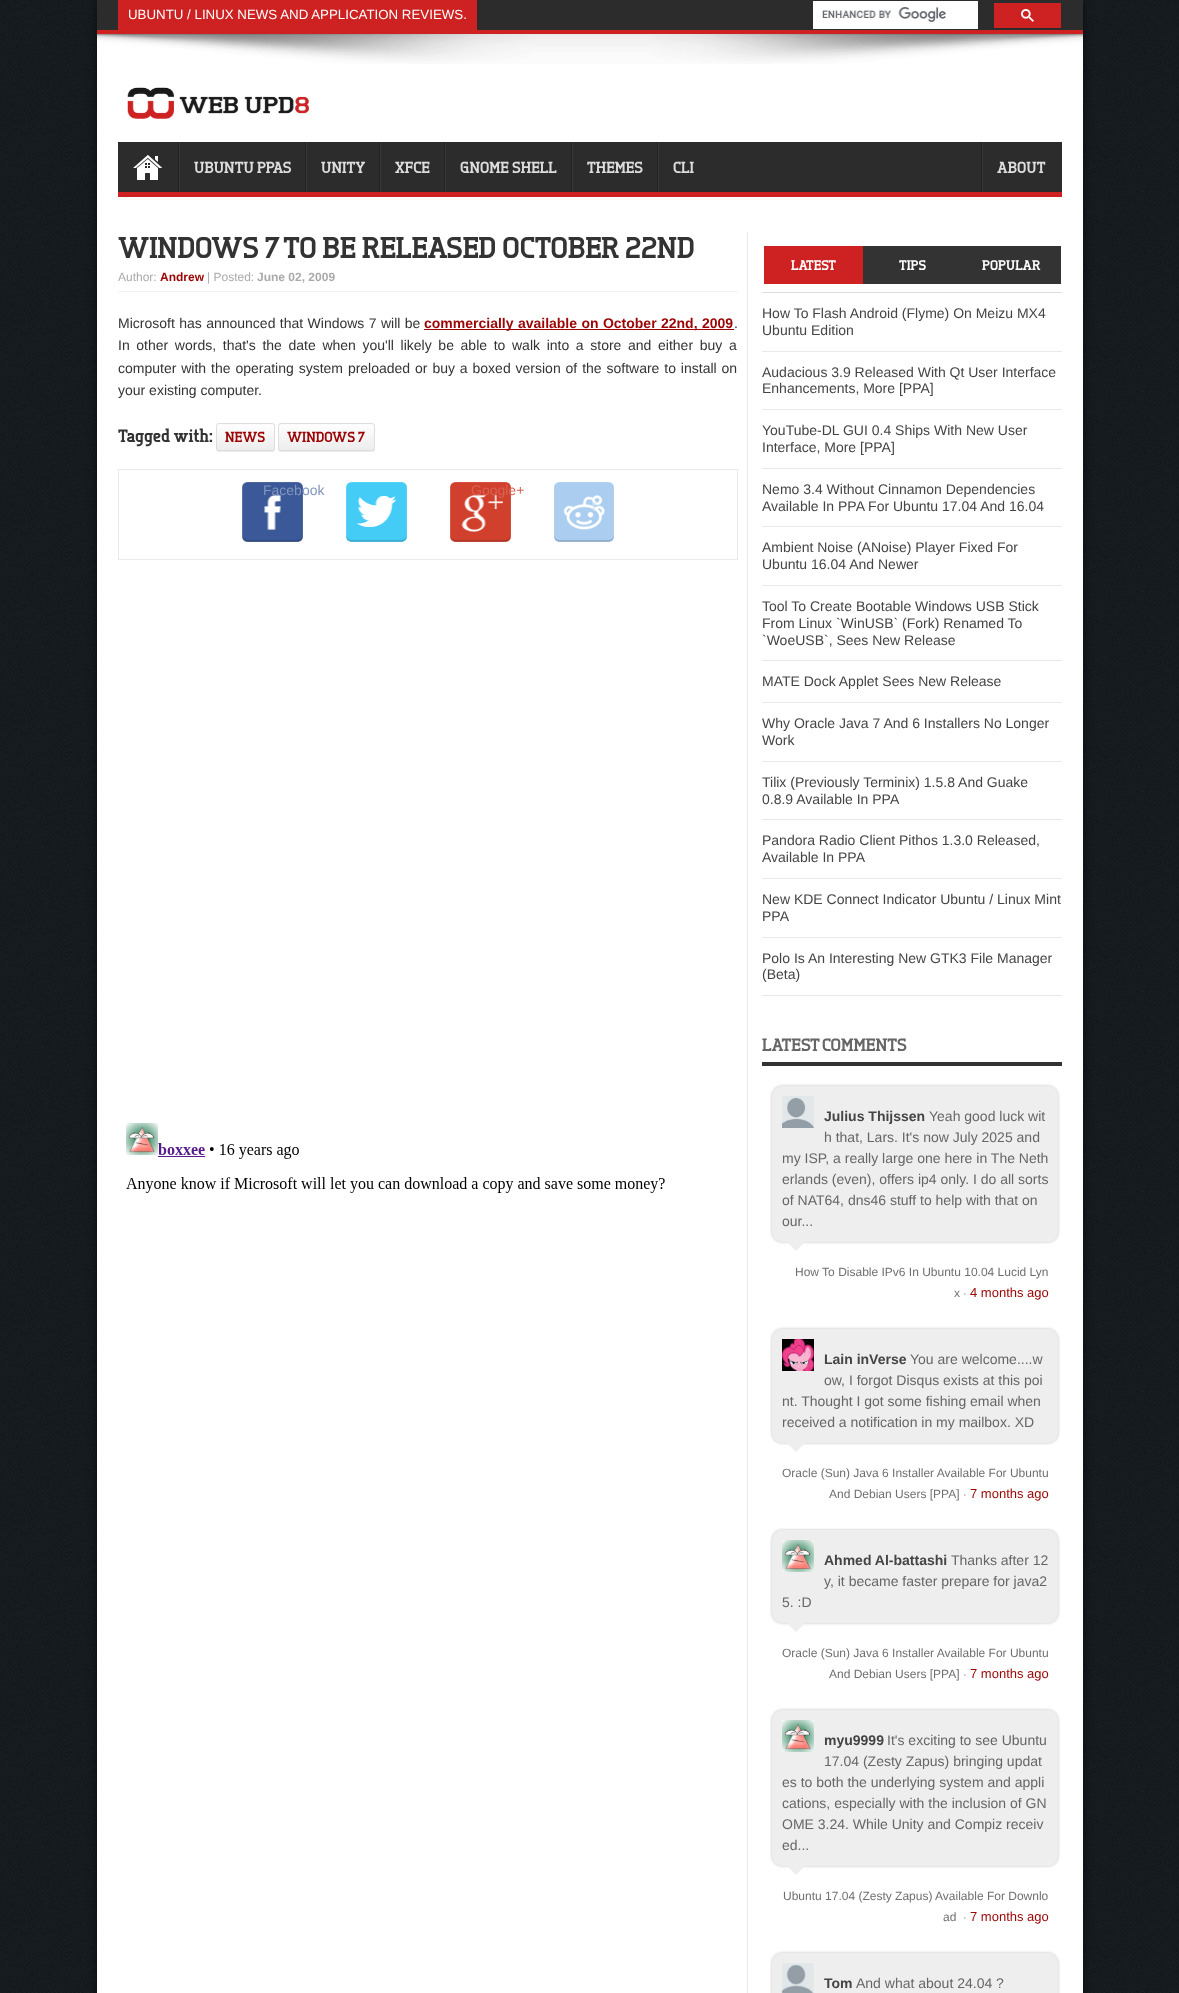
<?xml version="1.0" encoding="UTF-8"?>
<svg xmlns="http://www.w3.org/2000/svg" xmlns:xlink="http://www.w3.org/1999/xlink" width="1179" height="1993">
  <defs>
    <clipPath id="clip1"><rect x="216" y="423" width="59" height="28" rx="3" /></clipPath>
    <linearGradient id="g1" gradientUnits="userSpaceOnUse" x1="246" y1="424" x2="246" y2="450"><stop offset="0" stop-color="#ffffff" /><stop offset="0.47" stop-color="#f6f6f6" /><stop offset="1" stop-color="#ededed" /></linearGradient>
    <clipPath id="clip2"><rect x="278" y="423" width="97" height="28" rx="3" /></clipPath>
    <linearGradient id="g2" gradientUnits="userSpaceOnUse" x1="327" y1="424" x2="327" y2="450"><stop offset="0" stop-color="#ffffff" /><stop offset="0.47" stop-color="#f6f6f6" /><stop offset="1" stop-color="#ededed" /></linearGradient>
  </defs>
  <rect width="100%" height="100%" fill="#ffffff" />
  <image x="0" y="0" width="1179" height="1993" xlink:href="image1.png" />
  <rect x="97" width="986" height="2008" fill="#000000" fill-opacity="0.5" filter="blur(5px)" />
  <rect x="97" y="34" width="986" height="1959" fill="#ffffff" />
  <rect x="97" width="986" height="30" fill="#2c2c2c" />
  <rect x="97" y="30" width="986" height="4" fill="#cd2122" />
  <rect x="118" width="359" height="30" fill="#cd2122" />
  <rect x="813" y="1" width="165" height="28" fill="#ffffff" />
  <image x="822" y="7" width="124" height="15" xlink:href="image2.png" />
  <rect x="994" y="3" width="67" height="25" fill="#cd2122" />
  <image x="1021" y="9" width="13" height="13" xlink:href="image3.png" />
  <image x="97" y="34" width="986" height="30" xlink:href="image4.png" />
  <image x="127" y="87" width="183" height="32" xlink:href="image5.png" />
  <rect x="118" y="142" width="944" height="50" fill="#2c2c2c" />
  <rect x="118" y="192" width="944" height="5" fill="#cd2122" />
  <image x="133" y="155" width="29" height="25" xlink:href="image6.png" />
  <rect x="178" y="142" width="1" height="50" fill="#222222" />
  <rect x="179" y="142" width="1" height="50" fill="#383838" />
  <rect x="305" y="142" width="1" height="50" fill="#222222" />
  <rect x="306" y="142" width="1" height="50" fill="#383838" />
  <rect x="379" y="142" width="1" height="50" fill="#222222" />
  <rect x="380" y="142" width="1" height="50" fill="#383838" />
  <rect x="444" y="142" width="1" height="50" fill="#222222" />
  <rect x="445" y="142" width="1" height="50" fill="#383838" />
  <rect x="571" y="142" width="1" height="50" fill="#222222" />
  <rect x="572" y="142" width="1" height="50" fill="#383838" />
  <rect x="657" y="142" width="1" height="50" fill="#222222" />
  <rect x="658" y="142" width="1" height="50" fill="#383838" />
  <rect x="981" y="142" width="1" height="50" fill="#222222" />
  <rect x="982" y="142" width="1" height="50" fill="#383838" />
  <rect x="118" y="291" width="620" height="1" fill="#f2f2f2" />
  <rect x="424" y="329" width="310" height="1" fill="#9b0505" />
  <rect x="216" y="424" width="59" height="28" rx="3" fill="#eaeaea" filter="blur(0.5px)" />
  <g clip-path="url(#clip1)">
    <rect x="216" y="424" width="59" height="26" fill="url(#g1)" />
  </g>
  <path d="M 219 425 h 53 c 1 0 2 1 2 2 c 0 -5 -7 -3 -11 -3 h -35 c -4 0 -11 -2 -11 3 c 0 -1 1 -2 2 -2 z" fill="#fbfbfb" />
  <rect x="216.5" y="423.5" width="58" height="27" rx="2.5" fill="none" stroke="#dedede" />
  <rect x="278" y="424" width="97" height="28" rx="3" fill="#eaeaea" filter="blur(0.5px)" />
  <g clip-path="url(#clip2)">
    <rect x="278" y="424" width="97" height="26" fill="url(#g2)" />
  </g>
  <path d="M 281 425 h 91 c 1 0 2 1 2 2 c 0 -1 0 -3 -2 -3 h -76 c -2 0 -17 -4 -17 3 c 0 -1 1 -2 2 -2 z" fill="#fbfbfb" />
  <rect x="278.5" y="423.5" width="96" height="27" rx="2.5" fill="none" stroke="#dedede" />
  <rect x="118.5" y="469.5" width="619" height="90" fill="none" stroke="#eaeaea" />
  <image x="242" y="482" width="61" height="60" xlink:href="image7.png" />
  <image x="346" y="482" width="61" height="60" xlink:href="image8.png" />
  <image x="450" y="482" width="61" height="60" xlink:href="image9.png" />
  <image x="554" y="482" width="60" height="60" xlink:href="image10.png" />
  <image x="126" y="1123" width="539" height="70" xlink:href="image11.png" />
  <rect x="747" y="232" width="1" height="1761" fill="#eaeaea" />
  <rect x="764" y="246" width="99" height="38" fill="#cd2122" />
  <rect x="863" y="246" width="198" height="38" fill="#333333" />
  <rect x="762" y="292" width="300" height="1" fill="#dddddd" />
  <rect x="762" y="351" width="300" height="1" fill="#e9e9e9" />
  <rect x="762" y="409" width="300" height="1" fill="#e9e9e9" />
  <rect x="762" y="468" width="300" height="1" fill="#e9e9e9" />
  <rect x="762" y="526" width="300" height="1" fill="#e9e9e9" />
  <rect x="762" y="585" width="300" height="1" fill="#e9e9e9" />
  <rect x="762" y="660" width="300" height="1" fill="#e9e9e9" />
  <rect x="762" y="702" width="300" height="1" fill="#e9e9e9" />
  <rect x="762" y="761" width="300" height="1" fill="#e9e9e9" />
  <rect x="762" y="819" width="300" height="1" fill="#e9e9e9" />
  <rect x="762" y="878" width="300" height="1" fill="#e9e9e9" />
  <rect x="762" y="937" width="300" height="1" fill="#e9e9e9" />
  <rect x="762" y="995" width="300" height="1" fill="#e9e9e9" />
  <rect x="762" y="1062" width="300" height="4" fill="#333333" />
  <rect x="772" y="1086" width="286" height="156" rx="10" fill="#000000" fill-opacity="0.25" filter="blur(1.5px)" />
  <rect x="772" y="1086" width="286" height="156" rx="10" fill="#eeeeee" />
  <image x="782" y="1096" width="32" height="32" xlink:href="image12.png" />
  <path d="M 786 1241 h 20 l -10 10 z" fill="#eeeeee" />
  <rect x="772" y="1329" width="286" height="114" rx="10" fill="#000000" fill-opacity="0.25" filter="blur(1.5px)" />
  <rect x="772" y="1329" width="286" height="114" rx="10" fill="#eeeeee" />
  <image x="782" y="1339" width="32" height="32" xlink:href="image13.png" />
  <path d="M 786 1442 h 20 l -10 10 z" fill="#eeeeee" />
  <rect x="772" y="1530" width="286" height="93" rx="10" fill="#000000" fill-opacity="0.25" filter="blur(1.5px)" />
  <rect x="772" y="1530" width="286" height="93" rx="10" fill="#eeeeee" />
  <image x="782" y="1540" width="32" height="32" xlink:href="image14.png" />
  <path d="M 786 1622 h 20 l -10 10 z" fill="#eeeeee" />
  <rect x="772" y="1710" width="286" height="156" rx="10" fill="#000000" fill-opacity="0.25" filter="blur(1.5px)" />
  <rect x="772" y="1710" width="286" height="156" rx="10" fill="#eeeeee" />
  <image x="782" y="1720" width="32" height="32" xlink:href="image14.png" />
  <path d="M 786 1865 h 20 l -10 10 z" fill="#eeeeee" />
  <rect x="772" y="1953" width="286" height="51" rx="10" fill="#000000" fill-opacity="0.25" filter="blur(1.5px)" />
  <rect x="772" y="1953" width="286" height="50" rx="10" fill="#eeeeee" />
  <image x="781" y="1963" width="33" height="30" xlink:href="image15.png" />
  <text x="128" y="19" style="font-family: Liberation Sans; font-size: 13.3px; fill: #ffffff">UBUNTU / LINUX NEWS AND APPLICATION REVIEWS.</text>
  <text x="194" y="173" style="font-family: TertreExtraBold; font-size: 16px; font-weight: 800; fill: #dddddd">UBUNTU PPAS</text>
  <text x="321" y="173" style="font-family: TertreExtraBold; font-size: 16px; font-weight: 800; fill: #dddddd">UNITY</text>
  <text x="395" y="173" style="font-family: TertreExtraBold; font-size: 16px; font-weight: 800; fill: #dddddd">XFCE</text>
  <text x="460" y="173" style="font-family: TertreExtraBold; font-size: 16px; font-weight: 800; fill: #dddddd">GNOME SHELL</text>
  <text x="587" y="173" style="font-family: TertreExtraBold; font-size: 16px; font-weight: 800; fill: #dddddd">THEMES</text>
  <text x="673" y="173" style="font-family: TertreExtraBold; font-size: 16px; font-weight: 800; fill: #dddddd">CLI</text>
  <text x="997" y="173" style="font-family: TertreExtraBold; font-size: 16px; font-weight: 800; fill: #dddddd">ABOUT</text>
  <text x="118" y="258" style="font-family: TertreExtraBold; font-size: 30px; font-weight: 800; fill: #333333">WINDOWS 7 TO BE RELEASED OCTOBER 22ND</text>
  <text x="118" y="281" style="font-family: Liberation Sans; font-size: 12px; fill: #aaaaaa">Author:</text>
  <text x="160" y="281" style="font-family: Liberation Sans; font-size: 12px; font-weight: bold; fill: #9b0505">Andrew</text>
  <text x="207" y="281" style="font-family: Liberation Sans; font-size: 12px; fill: #aaaaaa">| Posted:</text>
  <text x="257" y="281" style="font-family: Liberation Sans; font-size: 12px; font-weight: bold; fill: #aaaaaa">June 02, 2009</text>
  <text x="118" y="328" word-spacing="0.5" style="font-family: Liberation Sans; font-size: 14px; fill: #333333">Microsoft has announced that Windows 7 will be</text>
  <text x="424" y="328" word-spacing="0.5" style="font-family: Liberation Sans; font-size: 14px; font-weight: bold; fill: #9b0505">commercially available on October 22nd, 2009</text>
  <text x="734" y="328" style="font-family: Liberation Sans; font-size: 14px; fill: #333333">.</text>
  <text x="118" y="350" word-spacing="2.75" style="font-family: Liberation Sans; font-size: 14px; fill: #333333">In other words, that's the date when you'll likely be able to walk into a store and either buy a</text>
  <text x="118" y="373" word-spacing="1" style="font-family: Liberation Sans; font-size: 14px; fill: #333333">computer with the operating system preloaded or buy a boxed version of the software to install on</text>
  <text x="118" y="395" style="font-family: Liberation Sans; font-size: 14px; fill: #333333">your existing computer.</text>
  <text x="118" y="442" style="font-family: TertreExtraBold; font-size: 18px; font-weight: 800; fill: #333333">Tagged with:</text>
  <text x="225" y="442" style="font-family: TertreExtraBold; font-size: 14.5px; font-weight: 800; fill: #9b0505">NEWS</text>
  <text x="287" y="442" style="font-family: TertreExtraBold; font-size: 14.5px; font-weight: 800; fill: #9b0505">WINDOWS 7</text>
  <text x="263" y="495" style="font-family: Liberation Sans; font-size: 14px; fill: #8396be">Facebook</text>
  <text x="471" y="495" style="font-family: Liberation Sans; font-size: 14px; fill: #d96253">Google+</text>
  <text x="592" y="511" style="font-family: Liberation Sans; font-size: 14px; fill: #cee3f6">t</text>
  <text x="791" y="270" style="font-family: TertreExtraBold; font-size: 14px; font-weight: 800; fill: #ffffff">LATEST</text>
  <text x="899" y="270" style="font-family: TertreExtraBold; font-size: 14px; font-weight: 800; fill: #ffffff">TIPS</text>
  <text x="982" y="270" style="font-family: TertreExtraBold; font-size: 14px; font-weight: 800; fill: #ffffff">POPULAR</text>
  <text x="762" y="318" style="font-family: Liberation Sans; font-size: 14px; fill: #444444">How To Flash Android (Flyme) On Meizu MX4</text>
  <text x="762" y="335" style="font-family: Liberation Sans; font-size: 14px; fill: #444444">Ubuntu Edition</text>
  <text x="762" y="377" style="font-family: Liberation Sans; font-size: 14px; fill: #444444">Audacious 3.9 Released With Qt User Interface</text>
  <text x="762" y="393" style="font-family: Liberation Sans; font-size: 14px; fill: #444444">Enhancements, More [PPA]</text>
  <text x="762" y="435" style="font-family: Liberation Sans; font-size: 14px; fill: #444444">YouTube-DL GUI 0.4 Ships With New User</text>
  <text x="762" y="452" style="font-family: Liberation Sans; font-size: 14px; fill: #444444">Interface, More [PPA]</text>
  <text x="762" y="494" style="font-family: Liberation Sans; font-size: 14px; fill: #444444">Nemo 3.4 Without Cinnamon Dependencies</text>
  <text x="762" y="511" style="font-family: Liberation Sans; font-size: 14px; fill: #444444">Available In PPA For Ubuntu 17.04 And 16.04</text>
  <text x="762" y="552" style="font-family: Liberation Sans; font-size: 14px; fill: #444444">Ambient Noise (ANoise) Player Fixed For</text>
  <text x="762" y="569" style="font-family: Liberation Sans; font-size: 14px; fill: #444444">Ubuntu 16.04 And Newer</text>
  <text x="762" y="611" style="font-family: Liberation Sans; font-size: 14px; fill: #444444">Tool To Create Bootable Windows USB Stick</text>
  <text x="762" y="628" style="font-family: Liberation Sans; font-size: 14px; fill: #444444">From Linux `WinUSB` (Fork) Renamed To</text>
  <text x="762" y="645" style="font-family: Liberation Sans; font-size: 14px; fill: #444444">`WoeUSB`, Sees New Release</text>
  <text x="762" y="686" style="font-family: Liberation Sans; font-size: 14px; fill: #444444">MATE Dock Applet Sees New Release</text>
  <text x="762" y="728" style="font-family: Liberation Sans; font-size: 14px; fill: #444444">Why Oracle Java 7 And 6 Installers No Longer</text>
  <text x="762" y="745" style="font-family: Liberation Sans; font-size: 14px; fill: #444444">Work</text>
  <text x="762" y="787" style="font-family: Liberation Sans; font-size: 14px; fill: #444444">Tilix (Previously Terminix) 1.5.8 And Guake</text>
  <text x="762" y="804" style="font-family: Liberation Sans; font-size: 14px; fill: #444444">0.8.9 Available In PPA</text>
  <text x="762" y="845" style="font-family: Liberation Sans; font-size: 14px; fill: #444444">Pandora Radio Client Pithos 1.3.0 Released,</text>
  <text x="762" y="862" style="font-family: Liberation Sans; font-size: 14px; fill: #444444">Available In PPA</text>
  <text x="762" y="904" style="font-family: Liberation Sans; font-size: 14px; fill: #444444">New KDE Connect Indicator Ubuntu / Linux Mint</text>
  <text x="762" y="921" style="font-family: Liberation Sans; font-size: 14px; fill: #444444">PPA</text>
  <text x="762" y="963" style="font-family: Liberation Sans; font-size: 14px; fill: #444444">Polo Is An Interesting New GTK3 File Manager</text>
  <text x="762" y="979" style="font-family: Liberation Sans; font-size: 14px; fill: #444444">(Beta)</text>
  <text x="762" y="1051" style="font-family: TertreExtraBold; font-size: 18px; font-weight: 800; fill: #666666">LATEST COMMENTS</text>
  <text x="824" y="1121" style="font-family: Liberation Sans; font-size: 14px; font-weight: bold; fill: #444444">Julius Thijssen</text>
  <text x="929" y="1121" style="font-family: Liberation Sans; font-size: 14px; fill: #666666">Yeah good luck wit</text>
  <text x="824" y="1142" style="font-family: Liberation Sans; font-size: 14px; fill: #666666">h that, Lars. It's now July 2025 and</text>
  <text x="782" y="1163" style="font-family: Liberation Sans; font-size: 14px; fill: #666666">my ISP, a really large one here in The Neth</text>
  <text x="782" y="1184" style="font-family: Liberation Sans; font-size: 14px; fill: #666666">erlands (even), offers ip4 only. I do all sorts</text>
  <text x="782" y="1205" style="font-family: Liberation Sans; font-size: 14px; fill: #666666">of NAT64, dns46 stuff to help with that on</text>
  <text x="782" y="1226" style="font-family: Liberation Sans; font-size: 14px; fill: #666666">our...</text>
  <text x="795" y="1276" style="font-family: Liberation Sans; font-size: 12px; fill: #6f6f6f">How To Disable IPv6 In Ubuntu 10.04 Lucid Lyn</text>
  <text x="954" y="1297" style="font-family: Liberation Sans; font-size: 12px; fill: #6f6f6f">x</text>
  <text x="963" y="1297" style="font-family: Liberation Sans; font-size: 11px; fill: #666666">·</text>
  <text x="970" y="1297" style="font-family: Liberation Sans; font-size: 13px; fill: #9b0505">4 months ago</text>
  <text x="824" y="1364" style="font-family: Liberation Sans; font-size: 14px; font-weight: bold; fill: #444444">Lain inVerse</text>
  <text x="910" y="1364" style="font-family: Liberation Sans; font-size: 14px; fill: #666666">You are welcome....w</text>
  <text x="824" y="1385" style="font-family: Liberation Sans; font-size: 14px; fill: #666666">ow, I forgot Disqus exists at this poi</text>
  <text x="782" y="1406" style="font-family: Liberation Sans; font-size: 14px; fill: #666666">nt. Thought I got some fishing email when</text>
  <text x="782" y="1427" style="font-family: Liberation Sans; font-size: 14px; fill: #666666">received a notification in my mailbox. XD</text>
  <text x="782" y="1477" style="font-family: Liberation Sans; font-size: 12px; fill: #6f6f6f">Oracle (Sun) Java 6 Installer Available For Ubuntu</text>
  <text x="829" y="1498" style="font-family: Liberation Sans; font-size: 12px; fill: #6f6f6f">And Debian Users [PPA]</text>
  <text x="963" y="1498" style="font-family: Liberation Sans; font-size: 11px; fill: #666666">·</text>
  <text x="970" y="1498" style="font-family: Liberation Sans; font-size: 13px; fill: #9b0505">7 months ago</text>
  <text x="824" y="1565" style="font-family: Liberation Sans; font-size: 14px; font-weight: bold; fill: #444444">Ahmed Al-battashi</text>
  <text x="951" y="1565" style="font-family: Liberation Sans; font-size: 14px; fill: #666666">Thanks after 12</text>
  <text x="824" y="1586" style="font-family: Liberation Sans; font-size: 14px; fill: #666666">y, it became faster prepare for java2</text>
  <text x="782" y="1607" style="font-family: Liberation Sans; font-size: 14px; fill: #666666">5. :D</text>
  <text x="782" y="1657" style="font-family: Liberation Sans; font-size: 12px; fill: #6f6f6f">Oracle (Sun) Java 6 Installer Available For Ubuntu</text>
  <text x="829" y="1678" style="font-family: Liberation Sans; font-size: 12px; fill: #6f6f6f">And Debian Users [PPA]</text>
  <text x="963" y="1678" style="font-family: Liberation Sans; font-size: 11px; fill: #666666">·</text>
  <text x="970" y="1678" style="font-family: Liberation Sans; font-size: 13px; fill: #9b0505">7 months ago</text>
  <text x="824" y="1745" style="font-family: Liberation Sans; font-size: 14px; font-weight: bold; fill: #444444">myu9999</text>
  <text x="887" y="1745" style="font-family: Liberation Sans; font-size: 14px; fill: #666666">It's exciting to see Ubuntu</text>
  <text x="824" y="1766" style="font-family: Liberation Sans; font-size: 14px; fill: #666666">17.04 (Zesty Zapus) bringing updat</text>
  <text x="782" y="1787" style="font-family: Liberation Sans; font-size: 14px; fill: #666666">es to both the underlying system and appli</text>
  <text x="782" y="1808" style="font-family: Liberation Sans; font-size: 14px; fill: #666666">cations, especially with the inclusion of GN</text>
  <text x="782" y="1829" style="font-family: Liberation Sans; font-size: 14px; fill: #666666">OME 3.24. While Unity and Compiz receiv</text>
  <text x="782" y="1850" style="font-family: Liberation Sans; font-size: 14px; fill: #666666">ed...</text>
  <text x="783" y="1900" style="font-family: Liberation Sans; font-size: 12px; fill: #6f6f6f">Ubuntu 17.04 (Zesty Zapus) Available For Downlo</text>
  <text x="943" y="1921" style="font-family: Liberation Sans; font-size: 12px; fill: #6f6f6f">ad</text>
  <text x="963" y="1921" style="font-family: Liberation Sans; font-size: 11px; fill: #666666">·</text>
  <text x="970" y="1921" style="font-family: Liberation Sans; font-size: 13px; fill: #9b0505">7 months ago</text>
  <text x="824" y="1988" style="font-family: Liberation Sans; font-size: 14px; font-weight: bold; fill: #444444">Tom</text>
  <text x="856" y="1988" style="font-family: Liberation Sans; font-size: 14px; fill: #666666">And what about 24.04 ?</text>
</svg>
